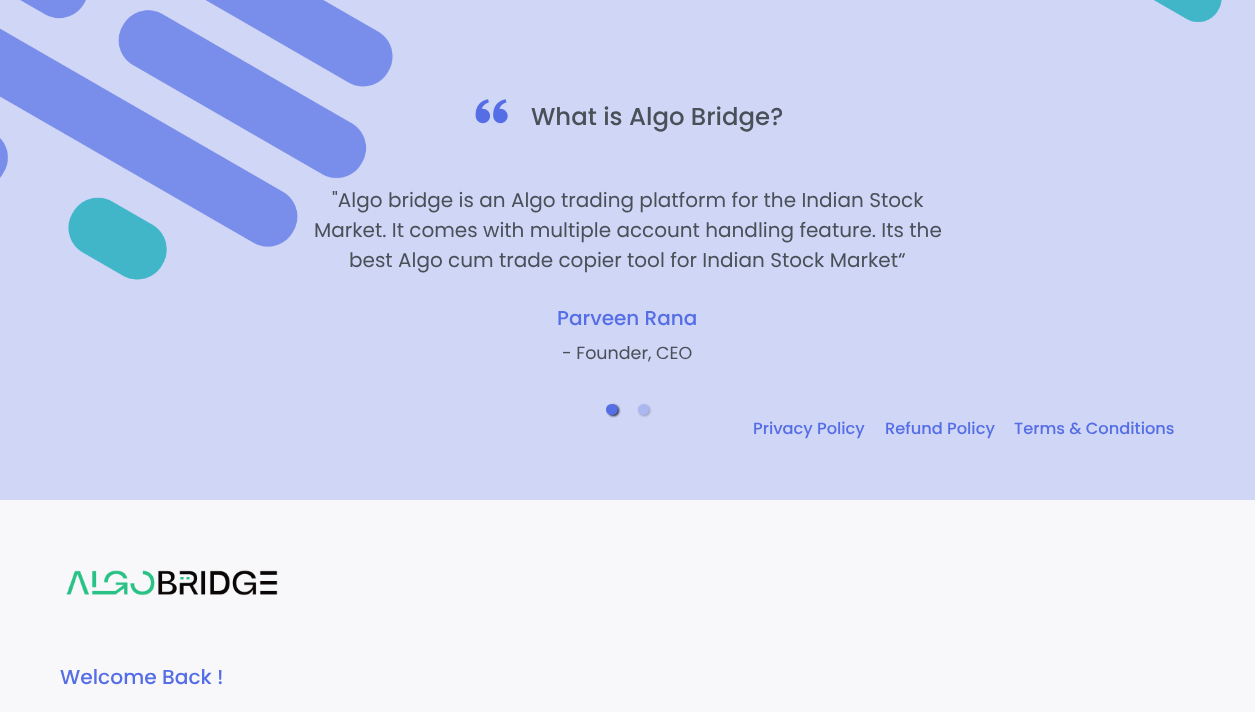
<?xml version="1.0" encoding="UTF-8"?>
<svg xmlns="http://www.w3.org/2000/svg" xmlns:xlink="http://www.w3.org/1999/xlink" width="1255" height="712">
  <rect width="100%" height="100%" fill="#f8f8fb" />
  <rect width="1255" height="500" fill="#d0d6f6" />
  <image x="0" y="0" width="1222" height="280" xlink:href="image1.png" />
  <image x="475" y="99" width="33" height="25" xlink:href="image2.png" />
  <rect x="608" y="405" width="11" height="11" rx="5.5" fill="#000000" fill-opacity="0.9" filter="blur(1px)" />
  <rect x="606" y="404" width="12" height="11" rx="5.5" fill="#556ee6" />
  <rect x="639" y="405" width="11" height="11" rx="5.5" fill="#9296ac" fill-opacity="0.9" filter="blur(1px)" />
  <circle cx="643.5" cy="409.5" r="5.5" fill="#abb7f1" />
  <image x="66" y="570" width="212" height="26" xlink:href="image3.png" />
  <text x="531" y="125" style="font-family: Poppins; font-size: 24.4px; font-weight: 500; fill: #495057">What is Algo Bridge?</text>
  <text x="332" y="207" style="font-family: Poppins; font-size: 20px; fill: #495057">"Algo bridge is an Algo trading platform for the Indian Stock</text>
  <text x="314" y="237" style="font-family: Poppins; font-size: 20px; fill: #495057">Market. It comes with multiple account handling feature. Its the</text>
  <text x="349" y="267" style="font-family: Poppins; font-size: 20px; fill: #495057">best Algo cum trade copier tool for Indian Stock Market“</text>
  <text x="557" y="325" style="font-family: Poppins; font-size: 20px; font-weight: 500; fill: #556ee6">Parveen Rana</text>
  <text x="562" y="359" style="font-family: Poppins; font-size: 17.5px; fill: #495057">- Founder, CEO</text>
  <text x="753" y="434" style="font-family: Poppins; font-size: 16.25px; font-weight: 500; fill: #556ee6">Privacy Policy</text>
  <text x="885" y="434" style="font-family: Poppins; font-size: 16.25px; font-weight: 500; fill: #556ee6">Refund Policy</text>
  <text x="1014" y="434" style="font-family: Poppins; font-size: 16.25px; font-weight: 500; fill: #556ee6">Terms &amp; Conditions</text>
  <text x="60" y="684" style="font-family: Poppins; font-size: 20.25px; font-weight: 500; fill: #556ee6">Welcome Back !</text>
</svg>
